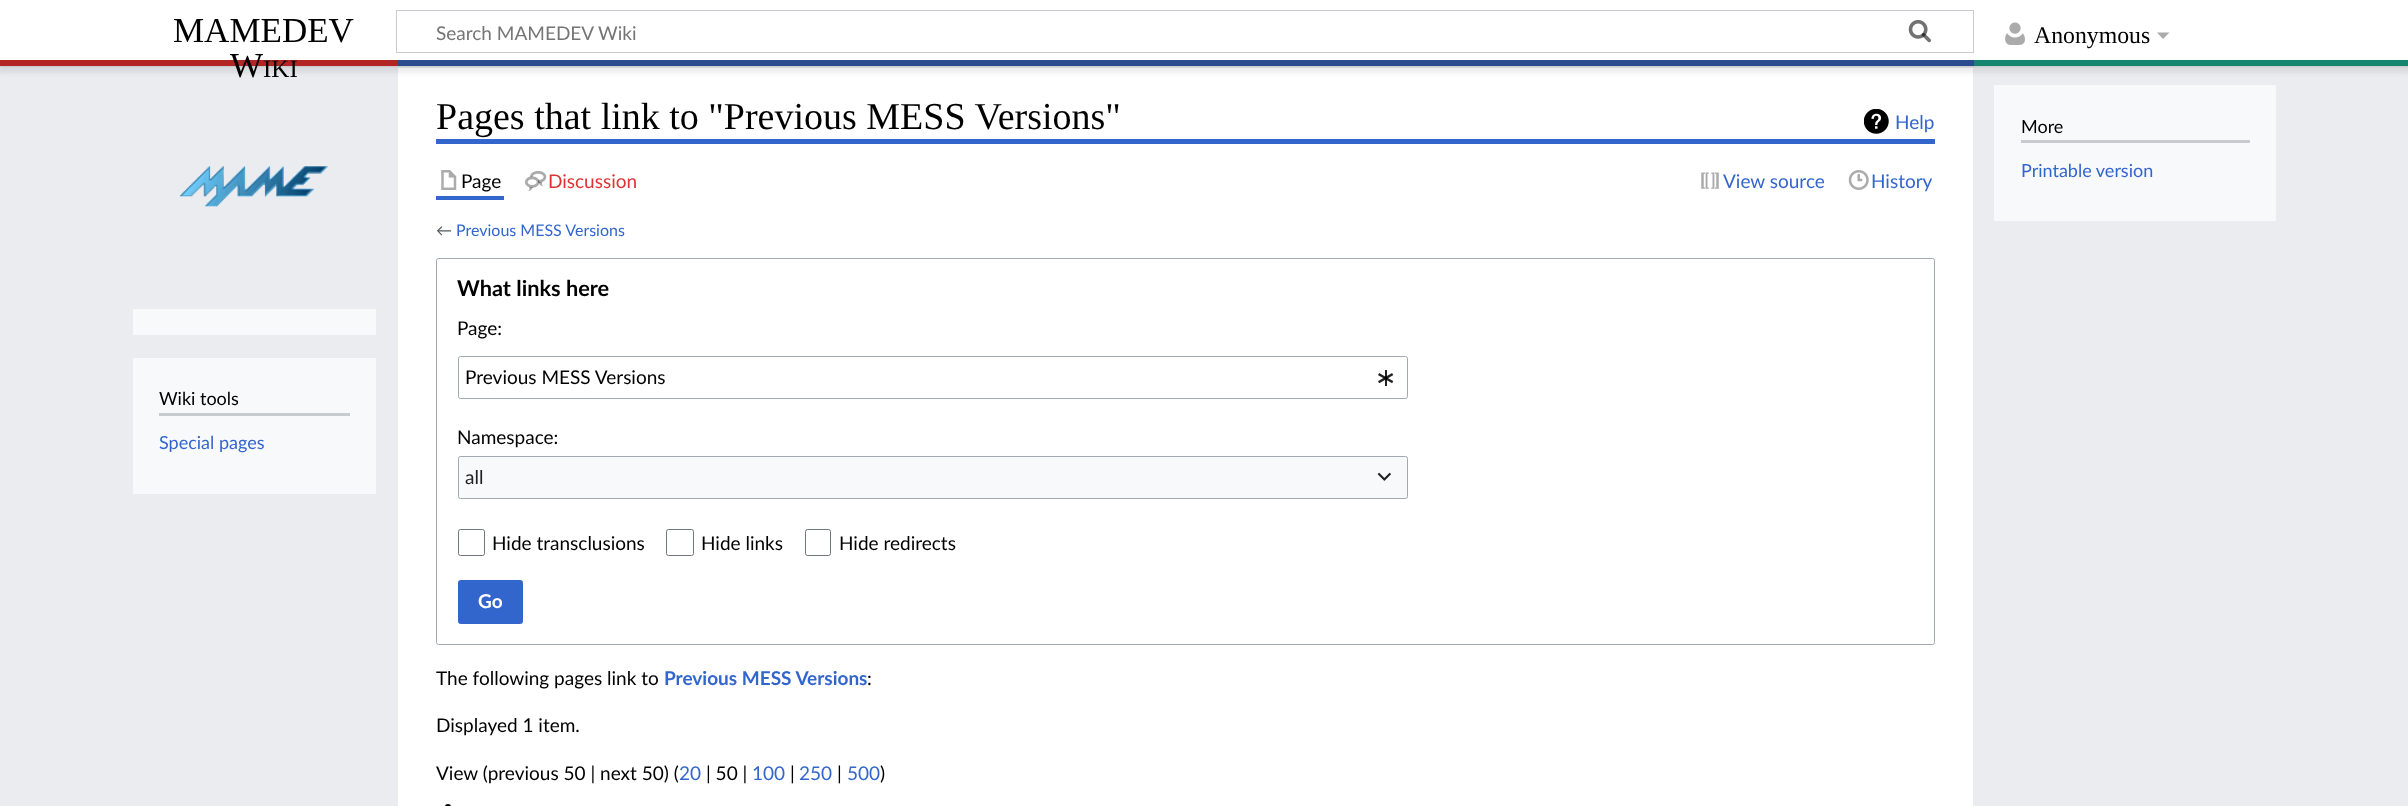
<?xml version="1.0" encoding="UTF-8"?>
<svg xmlns="http://www.w3.org/2000/svg" xmlns:xlink="http://www.w3.org/1999/xlink" width="2408" height="806">
  <rect width="100%" height="100%" fill="#eaecf0" />
  <rect x="398" y="68" width="1575" height="738" fill="#ffffff" />
  <rect y="60" width="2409" height="6" fill="#000000" fill-opacity="0.2" filter="blur(1px)" />
  <rect x="-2" y="61" width="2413" height="12" fill="#000000" fill-opacity="0.07" filter="blur(2px)" />
  <rect width="2408" height="60" fill="#ffffff" />
  <rect x="396.5" y="10.5" width="1577" height="42" fill="none" stroke="#c8ccd1" />
  <image x="1908" y="20" width="23" height="23" xlink:href="image1.png" />
  <image x="1908" y="20" width="23" height="23" xlink:href="image2.png" />
  <image x="2005" y="22" width="20" height="23" xlink:href="image3.png" />
  <path d="M 2169.5 32.5 l -6.5 6.5 l -6 -6.5 z" fill="#ababab" />
  <rect y="60" width="398" height="6" fill="#b32424" />
  <rect x="398" y="60" width="1576" height="6" fill="#2a4b8d" />
  <rect x="1974" y="60" width="434" height="6" fill="#14866d" />
  <rect x="436" y="139" width="1499" height="5" fill="#3366cc" />
  <image x="1864" y="109" width="25" height="25" xlink:href="image4.png" />
  <rect x="436" y="196" width="68" height="4" fill="#3366cc" />
  <image x="441" y="170" width="16" height="20" xlink:href="image5.png" />
  <image x="525" y="171" width="22" height="21" xlink:href="image6.png" />
  <image x="1701" y="172" width="18" height="17" xlink:href="image7.png" />
  <image x="1848" y="170" width="21" height="20" xlink:href="image8.png" />
  <rect x="436.5" y="258.5" width="1498" height="386" rx="2" fill="none" stroke="#a2a9b1" />
  <rect x="458.5" y="356.5" width="949" height="42" rx="2" fill="none" stroke="#a2a9b1" />
  <image x="1378" y="370" width="16" height="16" xlink:href="image9.png" />
  <rect x="458" y="456" width="950" height="43" fill="#f8f9fa" />
  <rect x="458.5" y="456.5" width="949" height="42" rx="2" fill="none" stroke="#a2a9b1" />
  <image x="1377" y="472" width="14" height="9" xlink:href="image10.png" />
  <rect x="458.5" y="529.5" width="26" height="26" rx="2" fill="none" stroke="#72777d" />
  <rect x="666.5" y="529.5" width="27" height="26" rx="2" fill="none" stroke="#72777d" />
  <rect x="805.5" y="529.5" width="25" height="26" rx="2" fill="none" stroke="#72777d" />
  <rect x="458.5" y="580.5" width="64" height="43" rx="2" fill="#3366cc" stroke="#3366cc" />
  <rect x="445" y="804" width="6" height="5" rx="3" fill="#000000" />
  <rect x="1994" y="85" width="282" height="136" fill="#f8f9fa" />
  <rect x="2021" y="140" width="229" height="3" fill="#c8ccd1" />
  <image x="179" y="166" width="149" height="41" xlink:href="image11.png" />
  <rect x="133" y="309" width="243" height="26" fill="#f8f9fa" />
  <rect x="133" y="358" width="243" height="136" fill="#f8f9fa" />
  <rect x="159" y="413" width="191" height="3" fill="#c8ccd1" />
  <text x="173" y="42" style="font-family: Liberation Serif; font-size: 35px; fill: #000000">MAMEDEV</text>
  <text x="230" y="77" style="font-family: Liberation Serif; font-size: 35px; fill: #000000">W</text>
  <text x="263" y="77" style="font-family: Liberation Serif; font-size: 25px; fill: #000000">IKI</text>
  <text x="436" y="40" style="font-family: Lato; font-size: 19px; fill: #757575">Search MAMEDEV Wiki</text>
  <text x="2034" y="43" style="font-family: Liberation Serif; font-size: 23.75px; fill: #000000">Anonymous</text>
  <text x="436" y="129" style="font-family: Liberation Serif; font-size: 38px; fill: #000000">Pages that link to "Previous MESS Versions"</text>
  <text x="1895" y="129" style="font-family: Lato; font-size: 19px; fill: #3366cc">Help</text>
  <text x="461" y="188" style="font-family: Lato; font-size: 19px; fill: #000000">Page</text>
  <text x="548" y="188" style="font-family: Lato; font-size: 19px; fill: #dd3333">Discussion</text>
  <text x="1723" y="188" style="font-family: Lato; font-size: 19px; fill: #3366cc">View source</text>
  <text x="1871" y="188" style="font-family: Lato; font-size: 19px; fill: #3366cc">History</text>
  <text x="436" y="236" style="font-family: Lato; font-size: 16px; fill: #54595d">←</text>
  <text x="456" y="236" style="font-family: Lato; font-size: 16px; fill: #3366cc">Previous MESS Versions</text>
  <text x="457" y="296" style="font-family: Lato; font-size: 21.75px; font-weight: bold; fill: #000000">What links here</text>
  <text x="457" y="335" style="font-family: Lato; font-size: 19px; fill: #000000">Page:</text>
  <text x="465" y="384" style="font-family: Lato; font-size: 19px; fill: #000000">Previous MESS Versions</text>
  <text x="457" y="444" style="font-family: Lato; font-size: 19px; fill: #000000">Namespace:</text>
  <text x="465" y="484" style="font-family: Lato; font-size: 19px; fill: #202122">all</text>
  <text x="492" y="550" style="font-family: Lato; font-size: 19px; fill: #000000">Hide transclusions</text>
  <text x="701" y="550" style="font-family: Lato; font-size: 19px; fill: #000000">Hide links</text>
  <text x="839" y="550" style="font-family: Lato; font-size: 19px; fill: #000000">Hide redirects</text>
  <text x="478" y="608" style="font-family: Lato; font-size: 19px; font-weight: bold; fill: #ffffff">Go</text>
  <text x="436" y="685" style="font-family: Lato; font-size: 19px; fill: #000000">The following pages link to</text>
  <text x="664" y="685" style="font-family: Lato; font-size: 19px; font-weight: bold; fill: #3366cc">Previous MESS Versions</text>
  <text x="867" y="685" style="font-family: Lato; font-size: 19px; fill: #000000">:</text>
  <text x="436" y="732" style="font-family: Lato; font-size: 19px; fill: #000000">Displayed 1 item.</text>
  <text x="436" y="780" style="font-family: Lato; font-size: 19px; fill: #000000">View (previous 50 | next 50) (</text>
  <text x="679" y="780" style="font-family: Lato; font-size: 19px; fill: #3366cc">20</text>
  <text x="706" y="780" style="font-family: Lato; font-size: 19px; fill: #000000">| 50 |</text>
  <text x="752" y="780" style="font-family: Lato; font-size: 19px; fill: #3366cc">100</text>
  <text x="790" y="780" style="font-family: Lato; font-size: 19px; fill: #000000">|</text>
  <text x="799" y="780" style="font-family: Lato; font-size: 19px; fill: #3366cc">250</text>
  <text x="837" y="780" style="font-family: Lato; font-size: 19px; fill: #000000">|</text>
  <text x="847" y="780" style="font-family: Lato; font-size: 19px; fill: #3366cc">500</text>
  <text x="880" y="780" style="font-family: Lato; font-size: 19px; fill: #000000">)</text>
  <text x="2021" y="133" style="font-family: Lato; font-size: 18px; fill: #000000">More</text>
  <text x="2021" y="177" style="font-family: Lato; font-size: 18px; fill: #3366cc">Printable version</text>
  <text x="159" y="405" style="font-family: Lato; font-size: 18px; fill: #000000">Wiki tools</text>
  <text x="159" y="449" style="font-family: Lato; font-size: 18px; fill: #3366cc">Special pages</text>
</svg>
